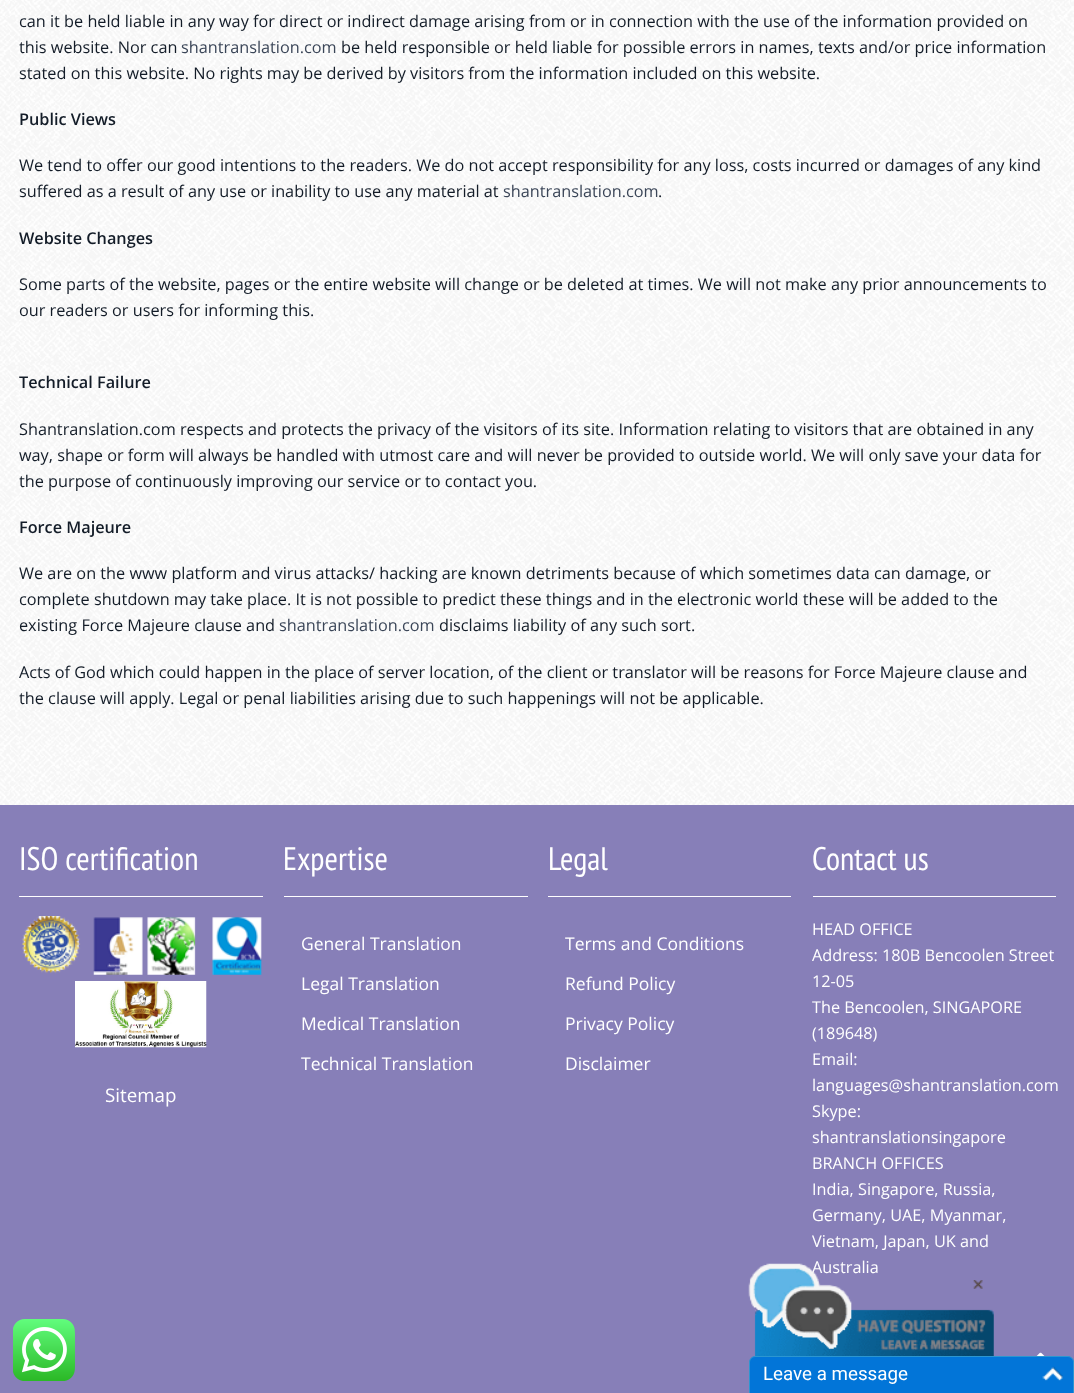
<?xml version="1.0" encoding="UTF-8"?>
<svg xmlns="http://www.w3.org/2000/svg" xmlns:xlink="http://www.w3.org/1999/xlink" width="1074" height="1393">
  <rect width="100%" height="100%" fill="#ffffff" />
  <image x="0" y="0" width="1074" height="805" xlink:href="image1.png" />
  <rect y="805" width="1074" height="575" fill="#877fb8" />
  <rect x="19" y="896" width="244" height="1" fill="#ffffff" />
  <image x="21" y="916" width="241" height="59" xlink:href="image2.png" />
  <image x="75" y="981" width="132" height="67" xlink:href="image3.png" />
  <rect x="284" y="896" width="244" height="1" fill="#ffffff" />
  <rect x="548" y="896" width="243" height="1" fill="#ffffff" />
  <rect x="813" y="896" width="243" height="1" fill="#ffffff" />
  <rect y="1380" width="749" height="13" fill="#877fb8" />
  <image x="1036" y="1352" width="9" height="4" xlink:href="image4.png" />
  <image x="13" y="1319" width="62" height="62" xlink:href="image5.png" />
  <path d="M 755 1356.5 h 313 c 3 0 5.5 2.5 5.5 5.5 v 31.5 h -324 v -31.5 c 0 -3 2.5 -5.5 5.5 -5.5 z" fill="#0275d8" stroke="#2c96d1" />
  <image x="1042" y="1366" width="21" height="15" xlink:href="image8.png" />
  <text x="19" y="27" style="font-family: Open Sans; font-size: 16.25px; fill: #131c28">can it be held liable in any way for direct or indirect damage arising from or in connection with the use of the information provided on</text>
  <text x="19" y="53" style="font-family: Open Sans; font-size: 16.25px; fill: #131c28">this website. Nor can</text>
  <text x="181" y="53" style="font-family: Open Sans; font-size: 16.25px; fill: #3b4658">shantranslation.com</text>
  <text x="341" y="53" style="font-family: Open Sans; font-size: 16.25px; fill: #131c28">be held responsible or held liable for possible errors in names, texts and/or price information</text>
  <text x="19" y="79" style="font-family: Open Sans; font-size: 16.25px; fill: #131c28">stated on this website. No rights may be derived by visitors from the information included on this website.</text>
  <text x="19" y="125" style="font-family: Open Sans; font-size: 16.25px; font-weight: 600; fill: #131c28">Public Views</text>
  <text x="19" y="171" style="font-family: Open Sans; font-size: 16.25px; fill: #131c28">We tend to offer our good intentions to the readers. We do not accept responsibility for any loss, costs incurred or damages of any kind</text>
  <text x="19" y="197" style="font-family: Open Sans; font-size: 16.25px; fill: #131c28">suffered as a result of any use or inability to use any material at</text>
  <text x="503" y="197" style="font-family: Open Sans; font-size: 16.25px; fill: #3b4658">shantranslation.com</text>
  <text x="658" y="197" style="font-family: Open Sans; font-size: 16.25px; fill: #131c28">.</text>
  <text x="19" y="244" style="font-family: Open Sans; font-size: 16.25px; font-weight: 600; fill: #131c28">Website Changes</text>
  <text x="19" y="290" style="font-family: Open Sans; font-size: 16.25px; fill: #131c28">Some parts of the website, pages or the entire website will change or be deleted at times. We will not make any prior announcements to</text>
  <text x="19" y="316" style="font-family: Open Sans; font-size: 16.25px; fill: #131c28">our readers or users for informing this.</text>
  <text x="19" y="388" style="font-family: Open Sans; font-size: 16.25px; font-weight: 600; fill: #131c28">Technical Failure</text>
  <text x="19" y="435" style="font-family: Open Sans; font-size: 16.25px; fill: #131c28">Shantranslation.com respects and protects the privacy of the visitors of its site. Information relating to visitors that are obtained in any</text>
  <text x="19" y="461" style="font-family: Open Sans; font-size: 16.25px; fill: #131c28">way, shape or form will always be handled with utmost care and will never be provided to outside world. We will only save your data for</text>
  <text x="19" y="487" style="font-family: Open Sans; font-size: 16.25px; fill: #131c28">the purpose of continuously improving our service or to contact you.</text>
  <text x="19" y="533" style="font-family: Open Sans; font-size: 16.25px; font-weight: 600; fill: #131c28">Force Majeure</text>
  <text x="19" y="579" style="font-family: Open Sans; font-size: 16.25px; fill: #131c28">We are on the www platform and virus attacks/ hacking are known detriments because of which sometimes data can damage, or</text>
  <text x="19" y="605" style="font-family: Open Sans; font-size: 16.25px; fill: #131c28">complete shutdown may take place. It is not possible to predict these things and in the electronic world these will be added to the</text>
  <text x="19" y="631" style="font-family: Open Sans; font-size: 16.25px; fill: #131c28">existing Force Majeure clause and</text>
  <text x="279" y="631" style="font-family: Open Sans; font-size: 16.25px; fill: #3b4658">shantranslation.com</text>
  <text x="439" y="631" style="font-family: Open Sans; font-size: 16.25px; fill: #131c28">disclaims liability of any such sort.</text>
  <text x="19" y="678" style="font-family: Open Sans; font-size: 16.25px; fill: #131c28">Acts of God which could happen in the place of server location, of the client or translator will be reasons for Force Majeure clause and</text>
  <text x="19" y="704" style="font-family: Open Sans; font-size: 16.25px; fill: #131c28">the clause will apply. Legal or penal liabilities arising due to such happenings will not be applicable.</text>
  <text x="19" y="870" style="font-family: PT Sans Narrow; font-size: 32.5px; fill: #ffffff">ISO certification</text>
  <text x="105" y="1102" style="font-family: Open Sans; font-size: 18.75px; fill: #ffffff">Sitemap</text>
  <text x="283" y="870" style="font-family: PT Sans Narrow; font-size: 32.5px; fill: #ffffff">Expertise</text>
  <text x="301" y="950" style="font-family: Open Sans; font-size: 17.5px; fill: #ffffff">General Translation</text>
  <text x="301" y="990" style="font-family: Open Sans; font-size: 17.5px; fill: #ffffff">Legal Translation</text>
  <text x="301" y="1030" style="font-family: Open Sans; font-size: 17.5px; fill: #ffffff">Medical Translation</text>
  <text x="301" y="1070" style="font-family: Open Sans; font-size: 17.5px; fill: #ffffff">Technical Translation</text>
  <text x="548" y="870" style="font-family: PT Sans Narrow; font-size: 32.5px; fill: #ffffff">Legal</text>
  <text x="565" y="950" style="font-family: Open Sans; font-size: 17.5px; fill: #ffffff">Terms and Conditions</text>
  <text x="565" y="990" style="font-family: Open Sans; font-size: 17.5px; fill: #ffffff">Refund Policy</text>
  <text x="565" y="1030" style="font-family: Open Sans; font-size: 17.5px; fill: #ffffff">Privacy Policy</text>
  <text x="565" y="1070" style="font-family: Open Sans; font-size: 17.5px; fill: #ffffff">Disclaimer</text>
  <text x="812" y="870" style="font-family: PT Sans Narrow; font-size: 32.5px; fill: #ffffff">Contact us</text>
  <text x="812" y="935" style="font-family: Open Sans; font-size: 16.25px; fill: #ffffff">HEAD OFFICE</text>
  <text x="812" y="961" style="font-family: Open Sans; font-size: 16.25px; fill: #ffffff">Address: 180B Bencoolen Street</text>
  <text x="812" y="987" style="font-family: Open Sans; font-size: 16.25px; fill: #ffffff">12-05</text>
  <text x="812" y="1013" style="font-family: Open Sans; font-size: 16.25px; fill: #ffffff">The Bencoolen, SINGAPORE</text>
  <text x="812" y="1039" style="font-family: Open Sans; font-size: 16.25px; fill: #ffffff">(189648)</text>
  <text x="812" y="1065" style="font-family: Open Sans; font-size: 16.25px; fill: #ffffff">Email:</text>
  <text x="812" y="1091" style="font-family: Open Sans; font-size: 16.25px; fill: #ffffff">languages@shantranslation.com</text>
  <text x="812" y="1117" style="font-family: Open Sans; font-size: 16.25px; fill: #ffffff">Skype:</text>
  <text x="812" y="1143" style="font-family: Open Sans; font-size: 16.25px; fill: #ffffff">shantranslationsingapore</text>
  <text x="812" y="1169" style="font-family: Open Sans; font-size: 16.25px; fill: #ffffff">BRANCH OFFICES</text>
  <text x="812" y="1195" style="font-family: Open Sans; font-size: 16.25px; fill: #ffffff">India, Singapore, Russia,</text>
  <text x="812" y="1221" style="font-family: Open Sans; font-size: 16.25px; fill: #ffffff">Germany, UAE, Myanmar,</text>
  <text x="812" y="1247" style="font-family: Open Sans; font-size: 16.25px; fill: #ffffff">Vietnam, Japan, UK and</text>
  <text x="812" y="1273" style="font-family: Open Sans; font-size: 16.25px; fill: #ffffff">Australia</text>
  <image x="748" y="1263" width="246" height="93" xlink:href="image6.png" />
  <image x="973" y="1280" width="10" height="9" xlink:href="image7.png" />
  <text x="763" y="1380" style="font-family: Roboto; font-size: 18.75px; fill: #ffffff">Leave a message</text>
</svg>
